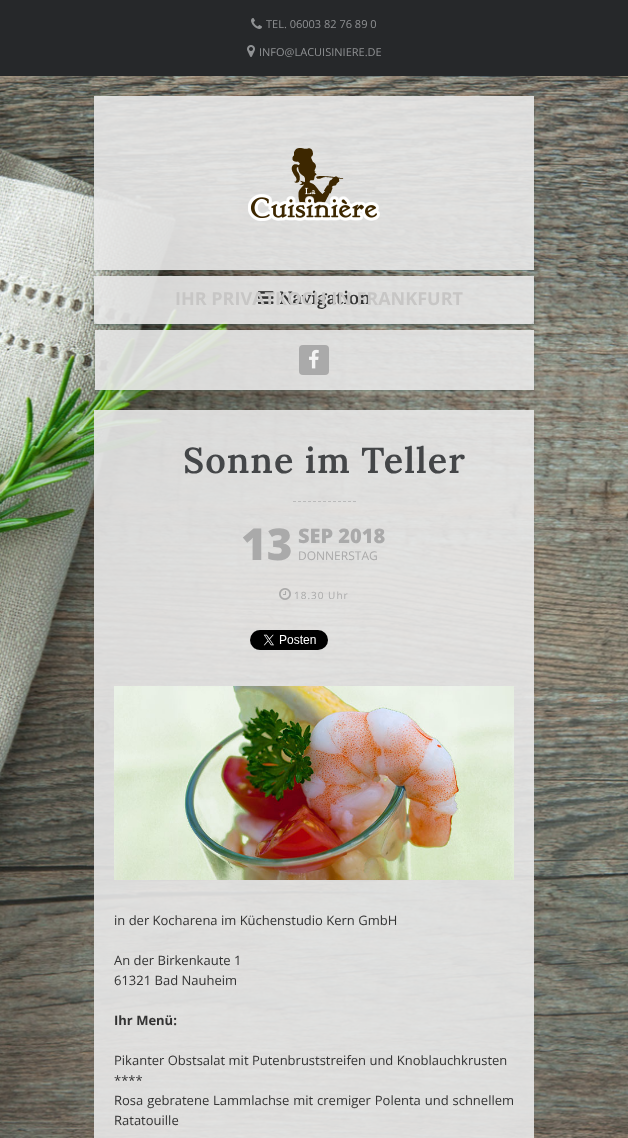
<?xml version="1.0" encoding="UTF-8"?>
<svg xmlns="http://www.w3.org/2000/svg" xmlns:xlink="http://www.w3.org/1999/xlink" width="628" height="1138">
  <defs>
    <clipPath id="clip1"><path d="M 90 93 h 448 v 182 h -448 z m 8 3 h 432 c 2 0 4 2 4 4 v 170 h -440 v -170 c 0 -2 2 -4 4 -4 z" clip-rule="evenodd" /></clipPath>
    <clipPath id="clip2"><path d="M 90 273 h 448 v 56 h -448 z m 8 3 h 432 c 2 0 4 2 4 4 v 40 c 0 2 -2 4 -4 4 h -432 c -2 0 -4 -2 -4 -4 v -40 c 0 -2 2 -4 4 -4 z" clip-rule="evenodd" /></clipPath>
    <clipPath id="clip3"><path d="M 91 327 h 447 v 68 h -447 z m 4 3 h 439 v 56 c 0 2 -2 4 -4 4 h -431 c -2 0 -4 -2 -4 -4 z" clip-rule="evenodd" /></clipPath>
  </defs>
  <rect width="100%" height="100%" fill="#ffffff" />
  <rect width="628" height="76" fill="#26282a" />
  <image x="251" y="18" width="11" height="11" xlink:href="image1.png" />
  <image x="247" y="45" width="8" height="12" xlink:href="image2.png" />
  <image x="0" y="76" width="628" height="1062" xlink:href="image3.png" />
  <g clip-path="url(#clip1)">
    <rect x="94" y="97" width="440" height="174" rx="4" fill="#1e4646" fill-opacity="0.23" filter="blur(1px)" />
  </g>
  <rect x="94" y="96" width="440" height="174" fill="#e9e9e9" fill-opacity="0.9" />
  <image x="248" y="148" width="132" height="73" xlink:href="image4.png" />
  <g clip-path="url(#clip2)">
    <rect x="94" y="277" width="440" height="48" rx="4" fill="#1e4646" fill-opacity="0.23" filter="blur(1px)" />
  </g>
  <rect x="94" y="276" width="440" height="48" fill="#e9e9e9" fill-opacity="0.9" />
  <g clip-path="url(#clip2)">
    <rect x="94" y="277" width="440" height="48" rx="4" fill="#1e4646" fill-opacity="0.23" filter="blur(1px)" />
  </g>
  <image x="258" y="291" width="16" height="13" xlink:href="image5.png" />
  <g clip-path="url(#clip3)">
    <rect x="95" y="331" width="439" height="60" rx="4" fill="#1e4646" fill-opacity="0.23" filter="blur(1px)" />
  </g>
  <rect x="95" y="330" width="439" height="60" fill="#e9e9e9" fill-opacity="0.9" />
  <rect x="299" y="345" width="30" height="30" rx="4" fill="#aaaaaa" />
  <image x="309" y="349" width="10" height="20" xlink:href="image6.png" />
  <rect x="94" y="410" width="440" height="728" fill="#e9e9e9" fill-opacity="0.9" />
  <path d="M 293 501.5 h 63" fill="none" stroke="#bbbbbb" stroke-dasharray="3 2" />
  <image x="279" y="588" width="12" height="12" xlink:href="image7.png" />
  <image x="250" y="630" width="78" height="20" xlink:href="image8.png" />
  <image x="114" y="686" width="400" height="194" xlink:href="image9.png" />
  <text x="266" y="28" style="font-family: Open Sans; font-size: 11px; fill: #909294">TEL. 06003 82 76 89 0</text>
  <text x="259" y="56" style="font-family: Open Sans; font-size: 11px; fill: #909294">INFO@LACUISINIERE.DE</text>
  <text x="279" y="304" style="font-family: Lora; font-size: 18px; font-weight: 600; fill: #333333">Navigation</text>
  <text x="175" y="305" style="font-family: Open Sans; font-size: 18px; font-weight: bold; fill: #c7c6c5">IHR PRIVATKOCH IN FRANKFURT</text>
  <text x="183" y="473" style="font-family: Lora; font-size: 36px; font-weight: 600; letter-spacing: 1px; fill: #444648">Sonne im Teller</text>
  <text x="241" y="560" style="font-family: Open Sans; font-size: 44px; font-weight: 800; fill: #aaaaaa">13</text>
  <text x="298" y="543" style="font-family: Open Sans; font-size: 20px; font-weight: 800; fill: #aaaaaa">SEP 2018</text>
  <text x="298" y="560" style="font-family: Open Sans; font-size: 12px; fill: #aaaaaa">DONNERSTAG</text>
  <text x="294" y="599" style="font-family: Open Sans; font-size: 10px; letter-spacing: 1px; fill: #aaaaaa">18.30 Uhr</text>
  <text x="114" y="925" style="font-family: Open Sans; font-size: 13px; fill: #333333">in der Kocharena im Küchenstudio Kern GmbH</text>
  <text x="114" y="965" style="font-family: Open Sans; font-size: 13px; fill: #333333">An der Birkenkaute 1</text>
  <text x="114" y="985" style="font-family: Open Sans; font-size: 13px; fill: #333333">61321 Bad Nauheim</text>
  <text x="114" y="1025" style="font-family: Open Sans; font-size: 13px; font-weight: bold; fill: #333333">Ihr Menü:</text>
  <text x="114" y="1065" style="font-family: Open Sans; font-size: 13px; fill: #333333">Pikanter Obstsalat mit Putenbruststreifen und Knoblauchkrusten</text>
  <text x="114" y="1085" style="font-family: Open Sans; font-size: 13px; fill: #333333">****</text>
  <text x="114" y="1105" word-spacing="0.5" style="font-family: Open Sans; font-size: 13px; fill: #333333">Rosa gebratene Lammlachse mit cremiger Polenta und schnellem</text>
  <text x="114" y="1125" style="font-family: Open Sans; font-size: 13px; fill: #333333">Ratatouille</text>
</svg>
